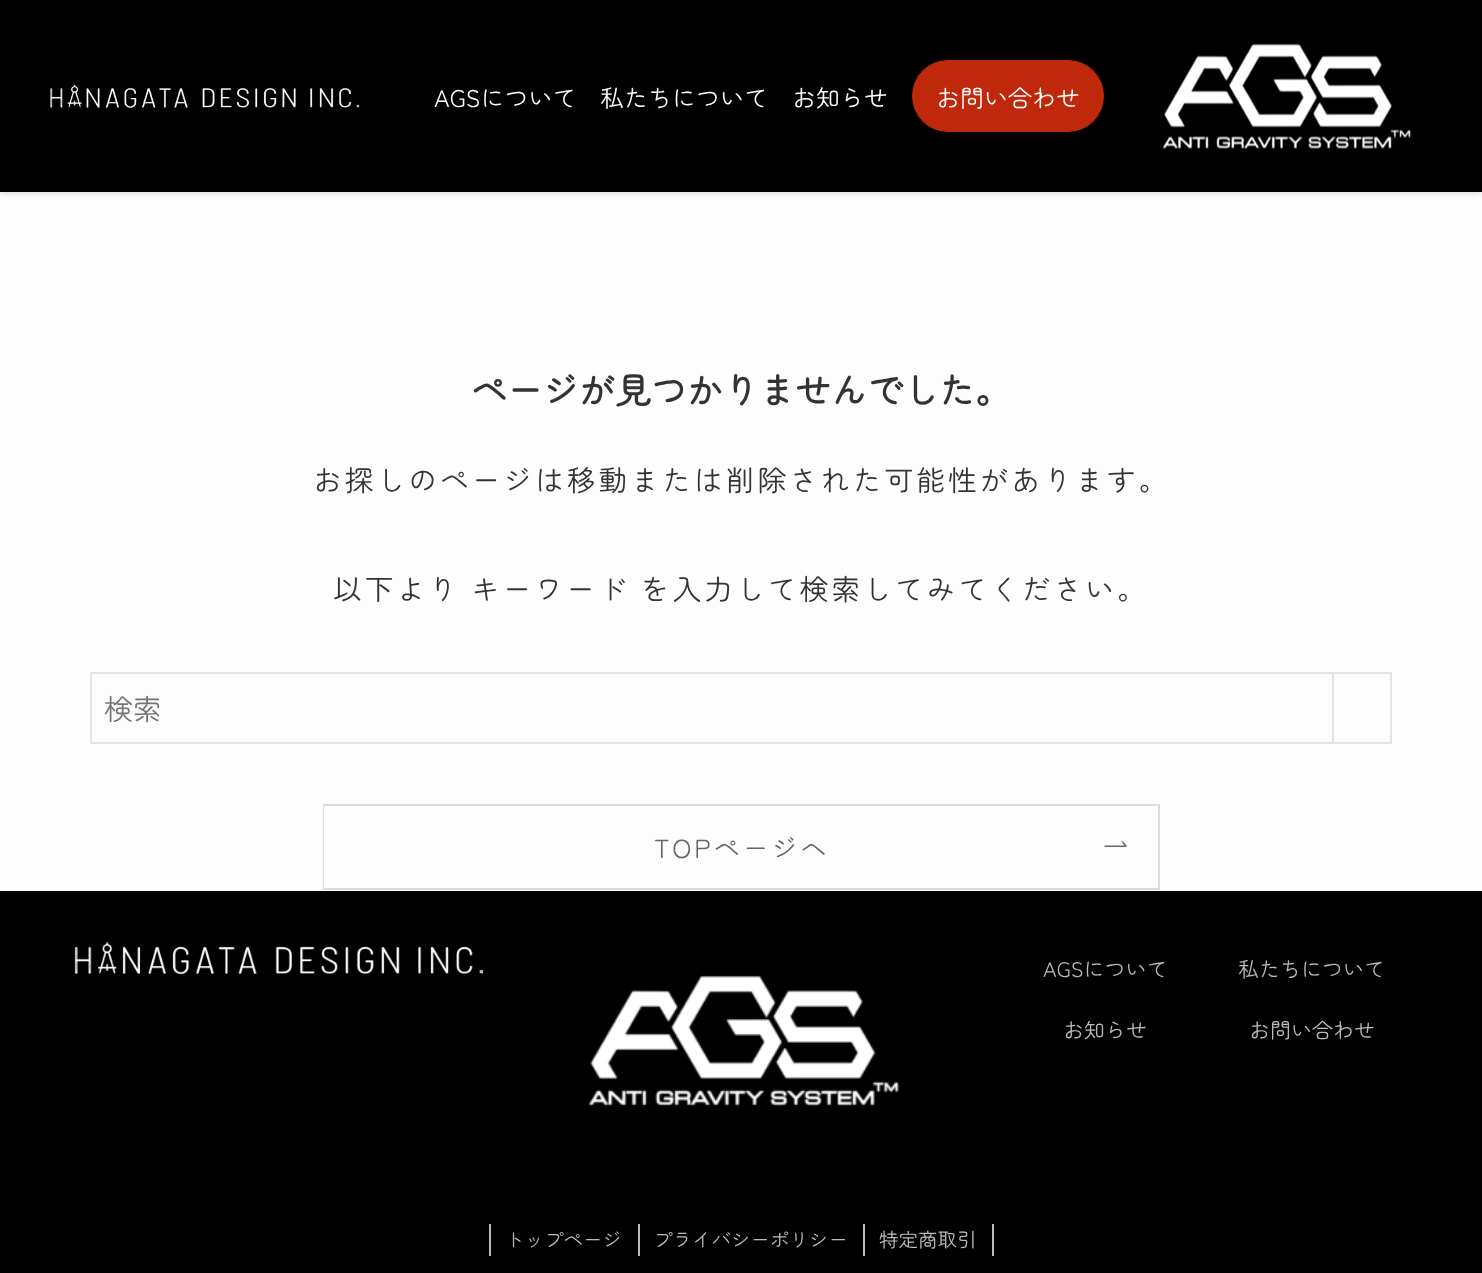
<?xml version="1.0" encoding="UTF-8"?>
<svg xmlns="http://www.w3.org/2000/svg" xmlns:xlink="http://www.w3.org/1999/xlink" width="1482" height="1273">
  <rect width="100%" height="100%" fill="#fdfdfd" />
  <rect y="2" width="1482" height="192" fill="#000000" fill-opacity="0.12" filter="blur(3px)" />
  <rect width="1482" height="192" fill="#000000" />
  <image x="50" y="84" width="310" height="24" xlink:href="image1.png" />
  <rect x="912" y="60" width="192" height="72" rx="36" fill="#bf280a" />
  <image x="1162" y="43" width="249" height="106" xlink:href="image2.png" />
  <rect x="91" y="673" width="1300" height="70" fill="none" stroke="#e3e3e3" stroke-width="2" />
  <rect x="1333" y="673" width="58" height="70" fill="none" stroke="#e3e3e3" stroke-width="2" />
  <rect x="324" y="805" width="835" height="84" fill="none" stroke="#dcdcdc" stroke-width="2" />
  <rect x="324" y="806" width="1" height="82" fill="#ffffff" />
  <path d="M 1126 847 h -21.5 v -1.5 h 20 l -3 -3.5 l 1 -1 l 4.5 5 z" fill="#666666" />
  <rect y="891" width="1482" height="382" fill="#000000" />
  <image x="74" y="941" width="410" height="34" xlink:href="image3.png" />
  <image x="588" y="975" width="311" height="132" xlink:href="image4.png" />
  <rect x="638" y="1224" width="2" height="32" fill="#bbbbbb" />
  <rect x="489" y="1224" width="2" height="32" fill="#bbbbbb" />
  <rect x="863" y="1224" width="2" height="32" fill="#bbbbbb" />
  <rect x="992" y="1224" width="2" height="32" fill="#bbbbbb" />
  <text x="434" y="107" style="font-family: Zen Maru Gothic; font-size: 24px; fill: #ffffff">AGSについて</text>
  <text x="600" y="107" style="font-family: Zen Maru Gothic; font-size: 24px; fill: #ffffff">私たちについて</text>
  <text x="792" y="107" style="font-family: Zen Maru Gothic; font-size: 24px; fill: #ffffff">お知らせ</text>
  <text x="936" y="107" style="font-family: Zen Maru Gothic; font-size: 24px; fill: #ffffff">お問い合わせ</text>
  <text x="471" y="404" style="font-family: Zen Maru Gothic; font-size: 36px; font-weight: bold; fill: #333333">ページが見つかりませんでした。</text>
  <text x="313" y="491" style="font-family: Zen Maru Gothic; font-size: 28.75px; letter-spacing: 3px; fill: #333333">お探しのページは移動または削除された可能性があります。</text>
  <text x="333" y="600" style="font-family: Zen Maru Gothic; font-size: 28.75px; letter-spacing: 3px; fill: #333333">以下より キーワード を入力して検索してみてください。</text>
  <text x="104" y="720" style="font-family: Zen Maru Gothic; font-size: 28.75px; fill: #757575">検索</text>
  <text x="654" y="858" style="font-family: Zen Maru Gothic; font-size: 26px; letter-spacing: 3px; fill: #666666">TOPページへ</text>
  <text x="1043" y="977" style="font-family: Zen Maru Gothic; font-size: 21px; fill: #bbbbbb">AGSについて</text>
  <text x="1238" y="977" style="font-family: Zen Maru Gothic; font-size: 21px; fill: #bbbbbb">私たちについて</text>
  <text x="1063" y="1038" style="font-family: Zen Maru Gothic; font-size: 21px; fill: #bbbbbb">お知らせ</text>
  <text x="1249" y="1038" style="font-family: Zen Maru Gothic; font-size: 21px; fill: #bbbbbb">お問い合わせ</text>
  <text x="505" y="1247" style="font-family: Zen Maru Gothic; font-size: 19.5px; fill: #bbbbbb">トップページ</text>
  <text x="653" y="1247" style="font-family: Zen Maru Gothic; font-size: 19.5px; fill: #bbbbbb">プライバシーポリシー</text>
  <text x="879" y="1247" style="font-family: Zen Maru Gothic; font-size: 19.5px; fill: #bbbbbb">特定商取引</text>
</svg>
